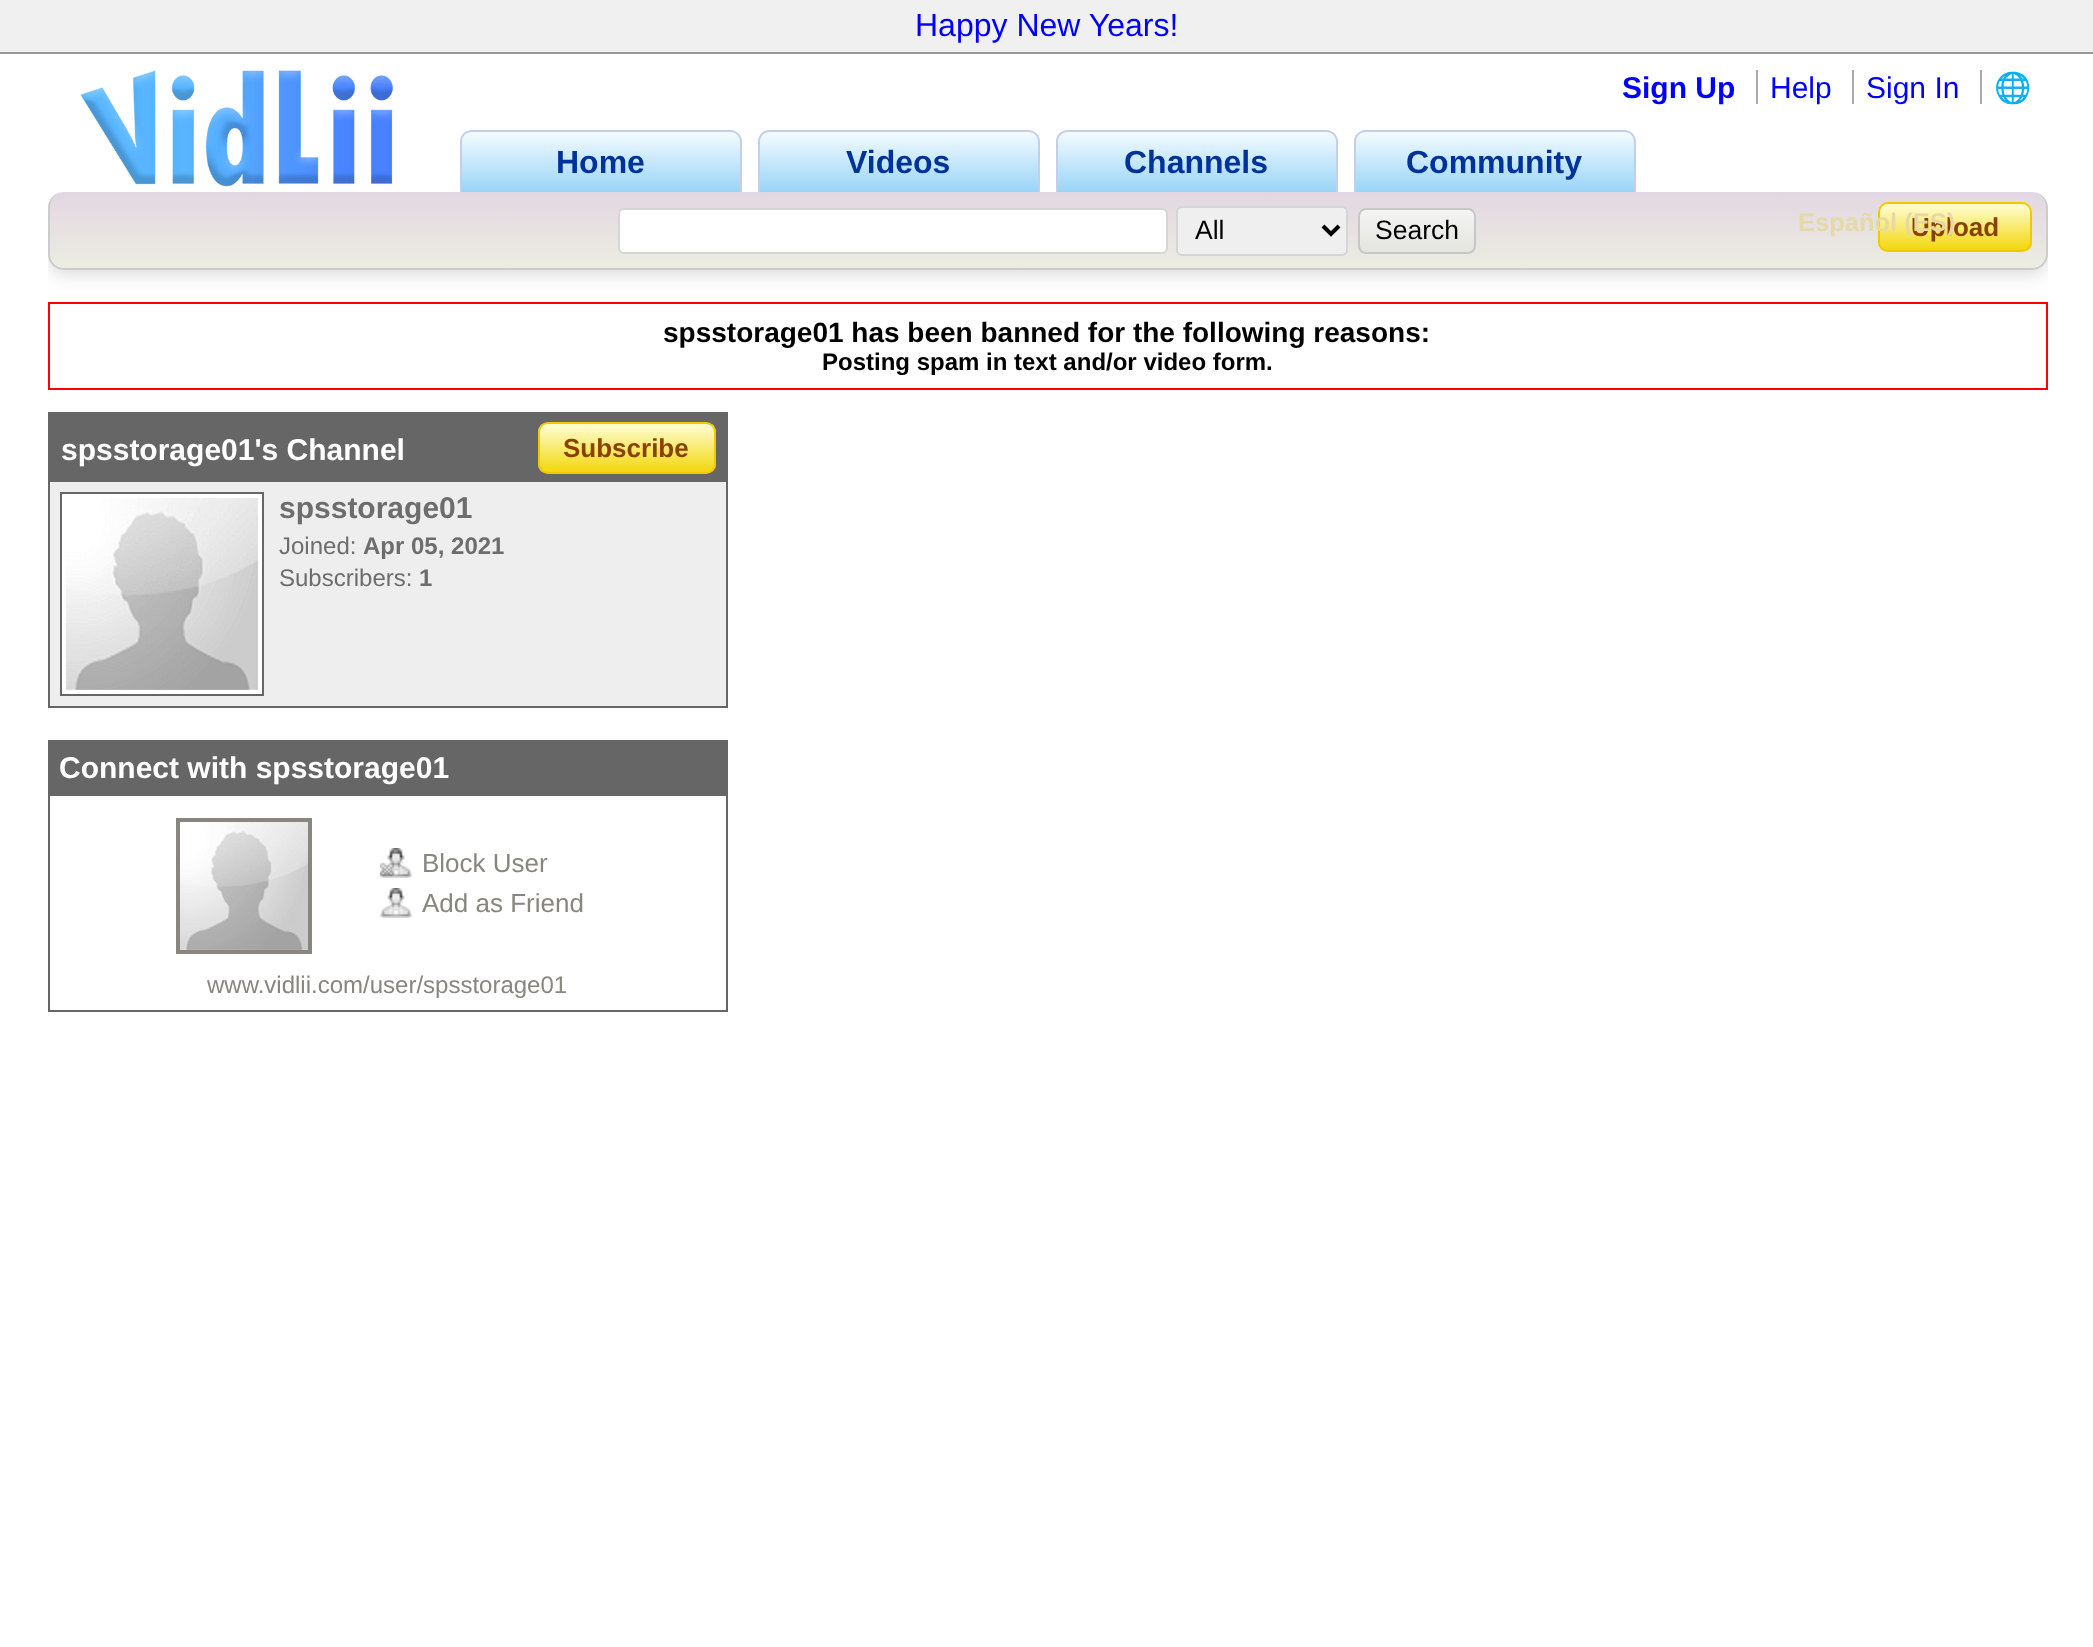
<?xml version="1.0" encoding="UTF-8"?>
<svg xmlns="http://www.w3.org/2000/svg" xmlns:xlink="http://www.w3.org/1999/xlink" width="2093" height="1647">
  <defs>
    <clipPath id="clip1"><rect x="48" y="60" width="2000" height="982" /></clipPath>
    <clipPath id="clip2"><path d="M 472 130 h 258 c 6.5 0 12 5.5 12 12 v 52 h -282 v -52 c 0 -6.5 5.5 -12 12 -12 z" /></clipPath>
    <linearGradient id="g1" gradientUnits="userSpaceOnUse" x1="601" y1="132" x2="601" y2="194"><stop offset="0" stop-color="#f4fbff" /><stop offset="1" stop-color="#96d3f7" /></linearGradient>
    <clipPath id="clip3"><path d="M 770 130 h 258 c 6.5 0 12 5.5 12 12 v 52 h -282 v -52 c 0 -6.5 5.5 -12 12 -12 z" /></clipPath>
    <linearGradient id="g2" gradientUnits="userSpaceOnUse" x1="899" y1="132" x2="899" y2="194"><stop offset="0" stop-color="#f4fbff" /><stop offset="1" stop-color="#96d3f7" /></linearGradient>
    <clipPath id="clip4"><path d="M 1068 130 h 258 c 6.5 0 12 5.5 12 12 v 52 h -282 v -52 c 0 -6.5 5.5 -12 12 -12 z" /></clipPath>
    <linearGradient id="g3" gradientUnits="userSpaceOnUse" x1="1197" y1="132" x2="1197" y2="194"><stop offset="0" stop-color="#f4fbff" /><stop offset="1" stop-color="#96d3f7" /></linearGradient>
    <clipPath id="clip5"><path d="M 1366 130 h 258 c 6.5 0 12 5.5 12 12 v 52 h -282 v -52 c 0 -6.5 5.5 -12 12 -12 z" /></clipPath>
    <linearGradient id="g4" gradientUnits="userSpaceOnUse" x1="1495" y1="132" x2="1495" y2="194"><stop offset="0" stop-color="#f4fbff" /><stop offset="1" stop-color="#96d3f7" /></linearGradient>
    <clipPath id="clip6"><rect x="48" y="192" width="2000" height="78" rx="16" /></clipPath>
    <linearGradient id="g5" gradientUnits="userSpaceOnUse" x1="1048" y1="192" x2="1048" y2="268"><stop offset="0.01" stop-color="#e2d7e2" /><stop offset="1" stop-color="#ecede1" /></linearGradient>
    <clipPath id="clip7"><rect x="1358" y="208" width="118" height="46" rx="8" /></clipPath>
    <linearGradient id="g6" gradientUnits="userSpaceOnUse" x1="1417" y1="210" x2="1417" y2="252"><stop offset="0" stop-color="#f4f4f4" /><stop offset="1" stop-color="#e4e5de" /></linearGradient>
    <clipPath id="clip8"><rect x="1878" y="202" width="154" height="50" rx="10" /></clipPath>
    <linearGradient id="g7" gradientUnits="userSpaceOnUse" x1="1955" y1="204" x2="1955" y2="250"><stop offset="0.07" stop-color="#fffbc7" /><stop offset="1" stop-color="#f2d70c" /></linearGradient>
    <clipPath id="clip9"><rect x="538" y="422" width="178" height="52" rx="10" /></clipPath>
    <linearGradient id="g8" gradientUnits="userSpaceOnUse" x1="627" y1="424" x2="627" y2="472"><stop offset="0.07" stop-color="#fffbc7" /><stop offset="1" stop-color="#f2d70c" /></linearGradient>
  </defs>
  <rect width="100%" height="100%" fill="#ffffff" />
  <rect width="2093" height="52" fill="#f0f0f0" />
  <rect y="52" width="2093" height="2" fill="#989898" />
  <g clip-path="url(#clip1)">
    <rect x="48" y="64" width="2000" height="210" rx="16" fill="#000000" fill-opacity="0.15" filter="blur(9px)" />
  </g>
  <path d="M 48 60 h 2000 v 194 c 0 9 -7 16 -16 16 h -1968 c -9 0 -16 -7 -16 -16 z" fill="#ffffff" />
  <image x="80" y="70" width="313" height="117" xlink:href="image1.png" />
  <g clip-path="url(#clip2)">
    <rect x="460" y="132" width="282" height="60" fill="url(#g1)" />
  </g>
  <path d="M 472 130 h 258 c 7 0 12 5 12 12 v 52 h -282 v -52 c 0 -7 5 -12 12 -12 z m 0 2 h 258 c 6 0 10 4 10 10 v 52 h -278 v -52 c 0 -6 4 -10 10 -10 z" fill="#c2cfec" fill-rule="evenodd" />
  <g clip-path="url(#clip3)">
    <rect x="758" y="132" width="282" height="60" fill="url(#g2)" />
  </g>
  <path d="M 770 130 h 258 c 7 0 12 5 12 12 v 52 h -282 v -52 c 0 -7 5 -12 12 -12 z m 0 2 h 258 c 6 0 10 4 10 10 v 52 h -278 v -52 c 0 -6 4 -10 10 -10 z" fill="#c2cfec" fill-rule="evenodd" />
  <g clip-path="url(#clip4)">
    <rect x="1056" y="132" width="282" height="60" fill="url(#g3)" />
  </g>
  <path d="M 1068 130 h 258 c 7 0 12 5 12 12 v 52 h -282 v -52 c 0 -7 5 -12 12 -12 z m 0 2 h 258 c 6 0 10 4 10 10 v 52 h -278 v -52 c 0 -6 4 -10 10 -10 z" fill="#c2cfec" fill-rule="evenodd" />
  <g clip-path="url(#clip5)">
    <rect x="1354" y="132" width="282" height="60" fill="url(#g4)" />
  </g>
  <path d="M 1366 130 h 258 c 7 0 12 5 12 12 v 52 h -282 v -52 c 0 -7 5 -12 12 -12 z m 0 2 h 258 c 6 0 10 4 10 10 v 52 h -278 v -52 c 0 -6 4 -10 10 -10 z" fill="#c2cfec" fill-rule="evenodd" />
  <rect x="1980" y="70" width="2" height="34" fill="#aaaaaa" />
  <rect x="1756" y="70" width="2" height="34" fill="#aaaaaa" />
  <rect x="1852" y="70" width="2" height="34" fill="#aaaaaa" />
  <g clip-path="url(#clip6)">
    <path d="M 64 192 h 1968 c 9 0 16 7 16 16 v 60 h -2000 v -60 c 0 -9 7 -16 16 -16 z" fill="url(#g5)" />
  </g>
  <path d="M 64 192 h 1968 c 9 0 16 7 16 16 v 46 c 0 9 -7 16 -16 16 h -1968 c -9 0 -16 -7 -16 -16 v -46 c 0 -9 7 -16 16 -16 z m 0 0 h 1968 c 8 0 14 7 14 16 v 46 c 0 8 -6 14 -14 14 h -1968 c -8 0 -14 -6 -14 -14 v -46 c 0 -9 6 -16 14 -16 z" fill="#cccccc" fill-rule="evenodd" />
  <rect x="619" y="209" width="548" height="44" rx="5" fill="#ffffff" stroke="#d5d5d5" stroke-width="2" />
  <rect x="1177" y="207" width="170" height="48" rx="5" fill="#efefef" stroke="#d5d5d5" stroke-width="2" />
  <path d="M 1323 226 l 8 8 l 8 -8" fill="none" stroke="#000000" stroke-width="4" />
  <g clip-path="url(#clip7)">
    <rect x="1358" y="210" width="118" height="42" fill="url(#g6)" />
  </g>
  <rect x="1359" y="209" width="116" height="44" rx="7" fill="none" stroke="#c7c7c7" stroke-width="2" />
  <g clip-path="url(#clip8)">
    <rect x="1878" y="204" width="154" height="46" fill="url(#g7)" />
  </g>
  <rect x="1879" y="203" width="152" height="48" rx="9" fill="none" stroke="#f4c800" stroke-width="2" />
  <rect x="49" y="303" width="1998" height="86" fill="none" stroke="#ff0000" stroke-width="2" />
  <rect x="48" y="412" width="680" height="70" fill="#666666" />
  <g clip-path="url(#clip9)">
    <rect x="538" y="424" width="178" height="48" fill="url(#g8)" />
  </g>
  <rect x="539" y="423" width="176" height="50" rx="9" fill="none" stroke="#f4c800" stroke-width="2" />
  <rect x="50" y="482" width="676" height="224" fill="#eeeeee" />
  <rect x="726" y="482" width="2" height="226" fill="#666666" />
  <rect x="48" y="706" width="680" height="2" fill="#666666" />
  <rect x="48" y="482" width="2" height="226" fill="#666666" />
  <rect x="61" y="493" width="202" height="202" fill="#ffffff" stroke="#666666" stroke-width="2" />
  <image x="66" y="498" width="192" height="192" xlink:href="image2.png" />
  <rect x="48" y="740" width="680" height="56" fill="#666666" />
  <rect x="726" y="796" width="2" height="216" fill="#666666" />
  <rect x="48" y="1010" width="680" height="2" fill="#666666" />
  <rect x="48" y="796" width="2" height="216" fill="#666666" />
  <rect x="178" y="820" width="132" height="132" fill="none" stroke="#89857f" stroke-width="4" />
  <image x="180" y="822" width="128" height="128" xlink:href="image3.png" />
  <image x="380" y="848" width="32" height="30" xlink:href="image4.png" />
  <image x="380" y="888" width="32" height="30" xlink:href="image5.png" />
  <text x="915" y="36" style="font-family: Liberation Sans; font-size: 32px; fill: #0000ff">Happy New Years!</text>
  <text x="556" y="173" style="font-family: Liberation Sans; font-size: 32px; font-weight: bold; fill: #003399">Home</text>
  <text x="846" y="173" style="font-family: Liberation Sans; font-size: 32px; font-weight: bold; fill: #003399">Videos</text>
  <text x="1124" y="173" style="font-family: Liberation Sans; font-size: 32px; font-weight: bold; fill: #003399">Channels</text>
  <text x="1406" y="173" style="font-family: Liberation Sans; font-size: 32px; font-weight: bold; fill: #003399">Community</text>
  <text x="1622" y="98" style="font-family: Liberation Sans; font-size: 30px; font-weight: bold; fill: #0000ff">Sign Up</text>
  <text x="1994" y="98" style="font-family: Noto Color Emoji; font-size: 30px; fill: #000000">🌐</text>
  <text x="1770" y="98" style="font-family: Liberation Sans; font-size: 30px; fill: #0000ff">Help</text>
  <text x="1866" y="98" style="font-family: Liberation Sans; font-size: 30px; fill: #0000ff">Sign In</text>
  <text x="1195" y="239" style="font-family: Liberation Sans; font-size: 26.5px; fill: #000000">All</text>
  <text x="1375" y="239" style="font-family: Liberation Sans; font-size: 26.5px; fill: #000000">Search</text>
  <text x="1911" y="236" style="font-family: Liberation Sans; font-size: 26px; font-weight: bold; fill: #8a4100">Upload</text>
  <text x="1798" y="231" style="font-family: Liberation Sans; font-size: 25.5px; font-weight: bold; fill: #e7d8a8">Español (ES)</text>
  <text x="663" y="342" style="font-family: Liberation Sans; font-size: 28px; font-weight: bold; fill: #000000">spsstorage01 has been banned for the following reasons:</text>
  <text x="822" y="370" style="font-family: Liberation Sans; font-size: 24px; font-weight: bold; fill: #000000">Posting spam in text and/or video form.</text>
  <text x="61" y="460" style="font-family: Liberation Sans; font-size: 30px; font-weight: bold; fill: #ffffff">spsstorage01's Channel</text>
  <text x="563" y="457" style="font-family: Liberation Sans; font-size: 26px; font-weight: bold; fill: #8a4100">Subscribe</text>
  <text x="279" y="518" style="font-family: Liberation Sans; font-size: 30px; font-weight: bold; fill: #6d6d6d">spsstorage01</text>
  <text x="279" y="554" style="font-family: Liberation Sans; font-size: 24px; fill: #6d6d6d">Joined:</text>
  <text x="363" y="554" style="font-family: Liberation Sans; font-size: 24px; font-weight: bold; fill: #6d6d6d">Apr 05, 2021</text>
  <text x="279" y="586" style="font-family: Liberation Sans; font-size: 24px; fill: #6d6d6d">Subscribers:</text>
  <text x="419" y="586" style="font-family: Liberation Sans; font-size: 24px; font-weight: bold; fill: #6d6d6d">1</text>
  <text x="59" y="778" style="font-family: Liberation Sans; font-size: 30px; font-weight: bold; fill: #ffffff">Connect with spsstorage01</text>
  <text x="422" y="872" style="font-family: Liberation Sans; font-size: 26px; fill: #89857f">Block User</text>
  <text x="422" y="912" style="font-family: Liberation Sans; font-size: 26px; fill: #89857f">Add as Friend</text>
  <text x="207" y="993" style="font-family: Liberation Sans; font-size: 24px; fill: #89857f">www.vidlii.com/user/spsstorage01</text>
</svg>
